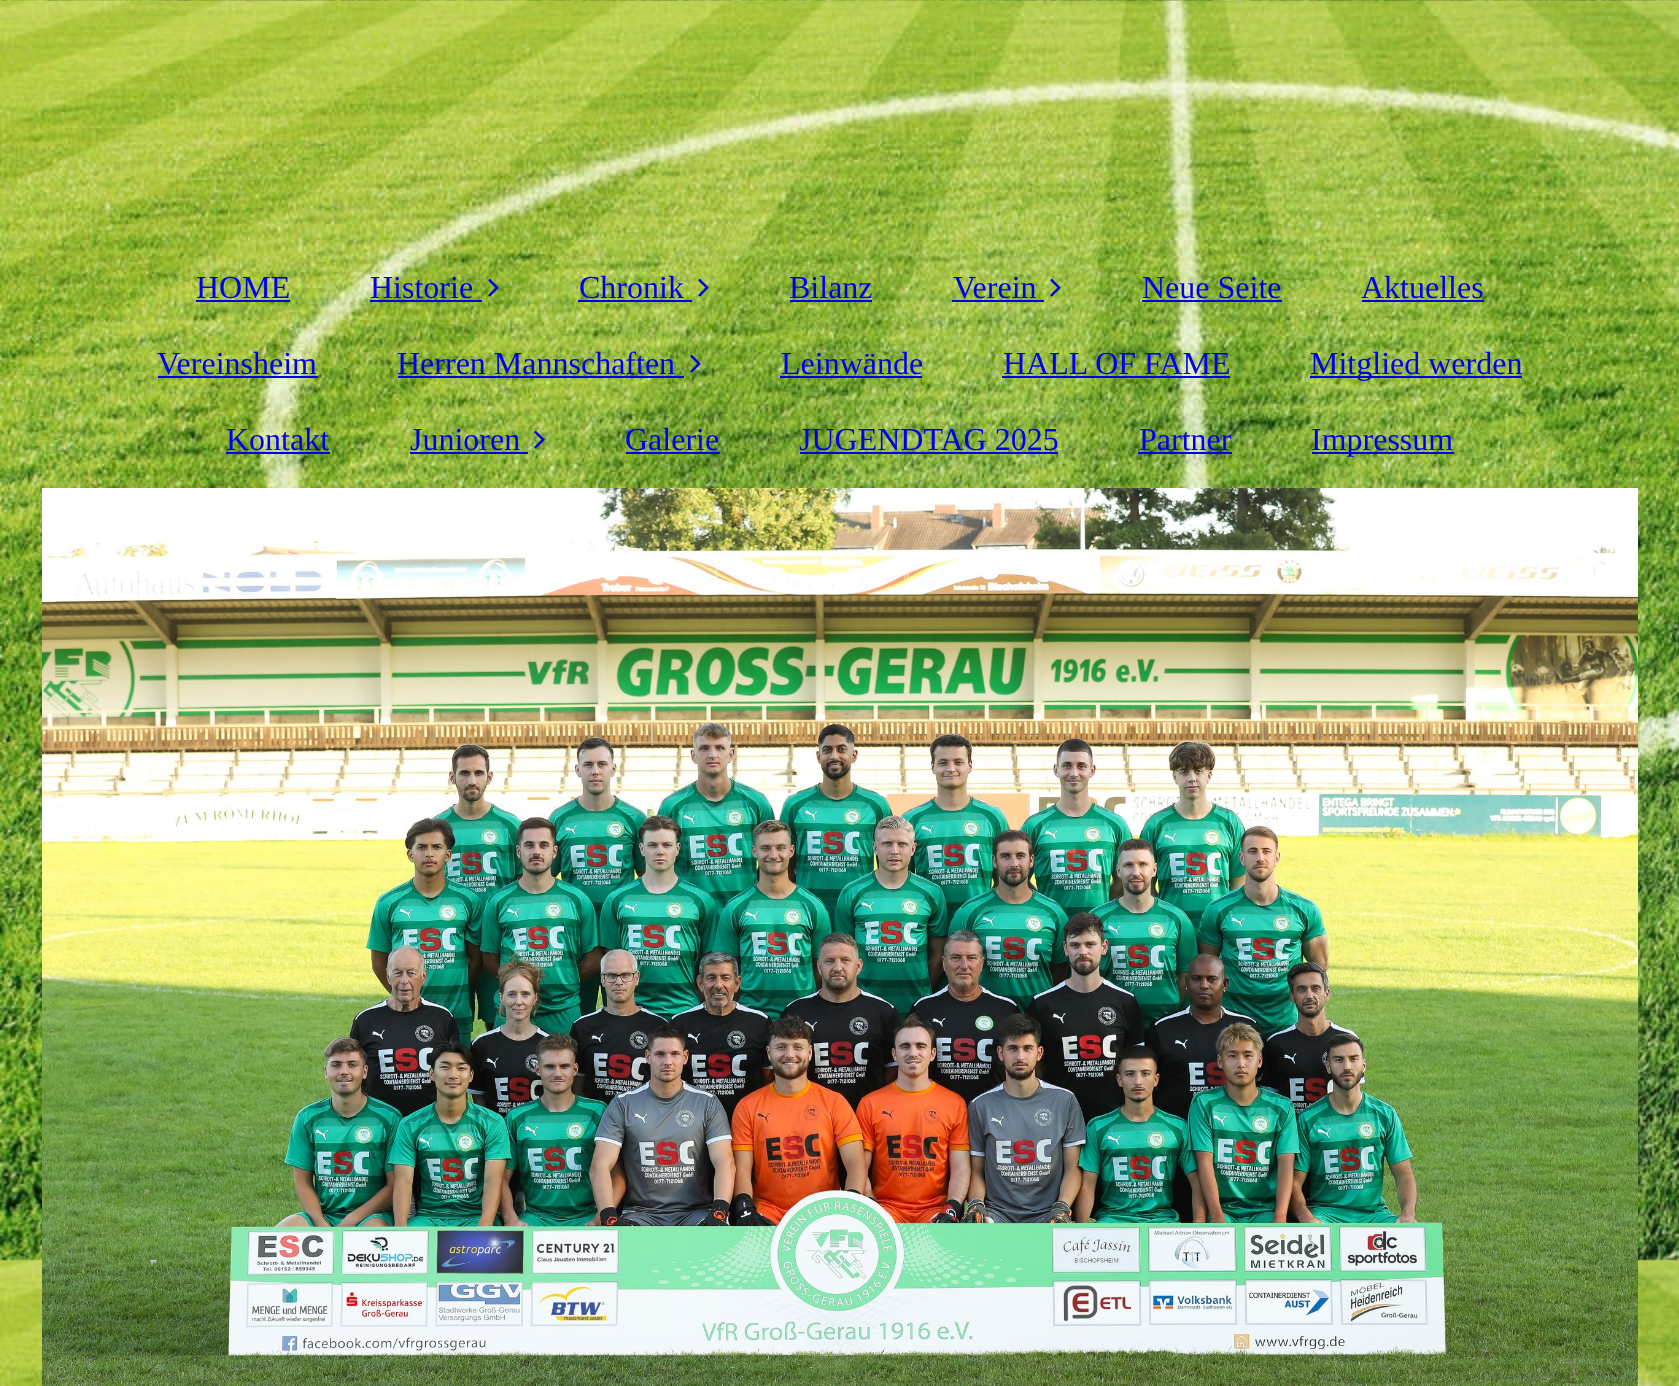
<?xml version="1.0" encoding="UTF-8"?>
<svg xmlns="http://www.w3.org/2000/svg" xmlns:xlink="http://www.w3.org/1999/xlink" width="1679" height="1386">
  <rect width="100%" height="100%" fill="#ffffff" />
  <image x="0" y="0" width="1679" height="1386" xlink:href="image1.png" />
  <rect x="196" y="300" width="94" height="2" fill="#0000ee" />
  <rect x="370" y="300" width="112" height="2" fill="#0000ee" />
  <image x="488" y="278" width="11" height="19" xlink:href="image2.png" />
  <rect x="578" y="300" width="114" height="2" fill="#0000ee" />
  <image x="698" y="278" width="11" height="19" xlink:href="image3.png" />
  <rect x="790" y="300" width="82" height="2" fill="#0000ee" />
  <rect x="952" y="300" width="92" height="2" fill="#0000ee" />
  <image x="1050" y="278" width="11" height="19" xlink:href="image4.png" />
  <rect x="1142" y="300" width="140" height="2" fill="#0000ee" />
  <rect x="1362" y="300" width="122" height="2" fill="#0000ee" />
  <rect x="158" y="376" width="160" height="2" fill="#0000ee" />
  <rect x="398" y="376" width="286" height="2" fill="#0000ee" />
  <image x="690" y="354" width="11" height="19" xlink:href="image5.png" />
  <rect x="780" y="376" width="142" height="2" fill="#0000ee" />
  <rect x="1002" y="376" width="228" height="2" fill="#0000ee" />
  <rect x="1310" y="376" width="212" height="2" fill="#0000ee" />
  <rect x="226" y="452" width="104" height="2" fill="#0000ee" />
  <rect x="410" y="452" width="118" height="2" fill="#0000ee" />
  <image x="534" y="430" width="11" height="19" xlink:href="image6.png" />
  <rect x="626" y="452" width="94" height="2" fill="#0000ee" />
  <rect x="800" y="452" width="258" height="2" fill="#0000ee" />
  <rect x="1138" y="452" width="94" height="2" fill="#0000ee" />
  <rect x="1312" y="452" width="142" height="2" fill="#0000ee" />
  <image x="42" y="488" width="1596" height="898" xlink:href="image7.png" />
  <text x="196" y="298" style="font-family: Liberation Serif; font-size: 32px; fill: #0000ee">HOME</text>
  <text x="370" y="298" style="font-family: Liberation Serif; font-size: 32px; fill: #0000ee">Historie</text>
  <text x="579" y="298" style="font-family: Liberation Serif; font-size: 32px; fill: #0000ee">Chronik</text>
  <text x="789" y="298" style="font-family: Liberation Serif; font-size: 32px; fill: #0000ee">Bilanz</text>
  <text x="953" y="298" style="font-family: Liberation Serif; font-size: 32px; fill: #0000ee">Verein</text>
  <text x="1142" y="298" style="font-family: Liberation Serif; font-size: 32px; fill: #0000ee">Neue Seite</text>
  <text x="1361" y="298" style="font-family: Liberation Serif; font-size: 32px; fill: #0000ee">Aktuelles</text>
  <text x="157" y="374" style="font-family: Liberation Serif; font-size: 32px; fill: #0000ee">Vereinsheim</text>
  <text x="397" y="374" style="font-family: Liberation Serif; font-size: 32px; fill: #0000ee">Herren Mannschaften</text>
  <text x="781" y="374" style="font-family: Liberation Serif; font-size: 32px; fill: #0000ee">Leinwände</text>
  <text x="1003" y="374" style="font-family: Liberation Serif; font-size: 32px; fill: #0000ee">HALL OF FAME</text>
  <text x="1310" y="374" style="font-family: Liberation Serif; font-size: 32px; fill: #0000ee">Mitglied werden</text>
  <text x="226" y="450" style="font-family: Liberation Serif; font-size: 32px; fill: #0000ee">Kontakt</text>
  <text x="410" y="450" style="font-family: Liberation Serif; font-size: 32px; fill: #0000ee">Junioren</text>
  <text x="625" y="450" style="font-family: Liberation Serif; font-size: 32px; fill: #0000ee">Galerie</text>
  <text x="799" y="450" style="font-family: Liberation Serif; font-size: 32px; fill: #0000ee">JUGENDTAG 2025</text>
  <text x="1139" y="450" style="font-family: Liberation Serif; font-size: 32px; fill: #0000ee">Partner</text>
  <text x="1311" y="450" style="font-family: Liberation Serif; font-size: 32px; fill: #0000ee">Impressum</text>
</svg>
